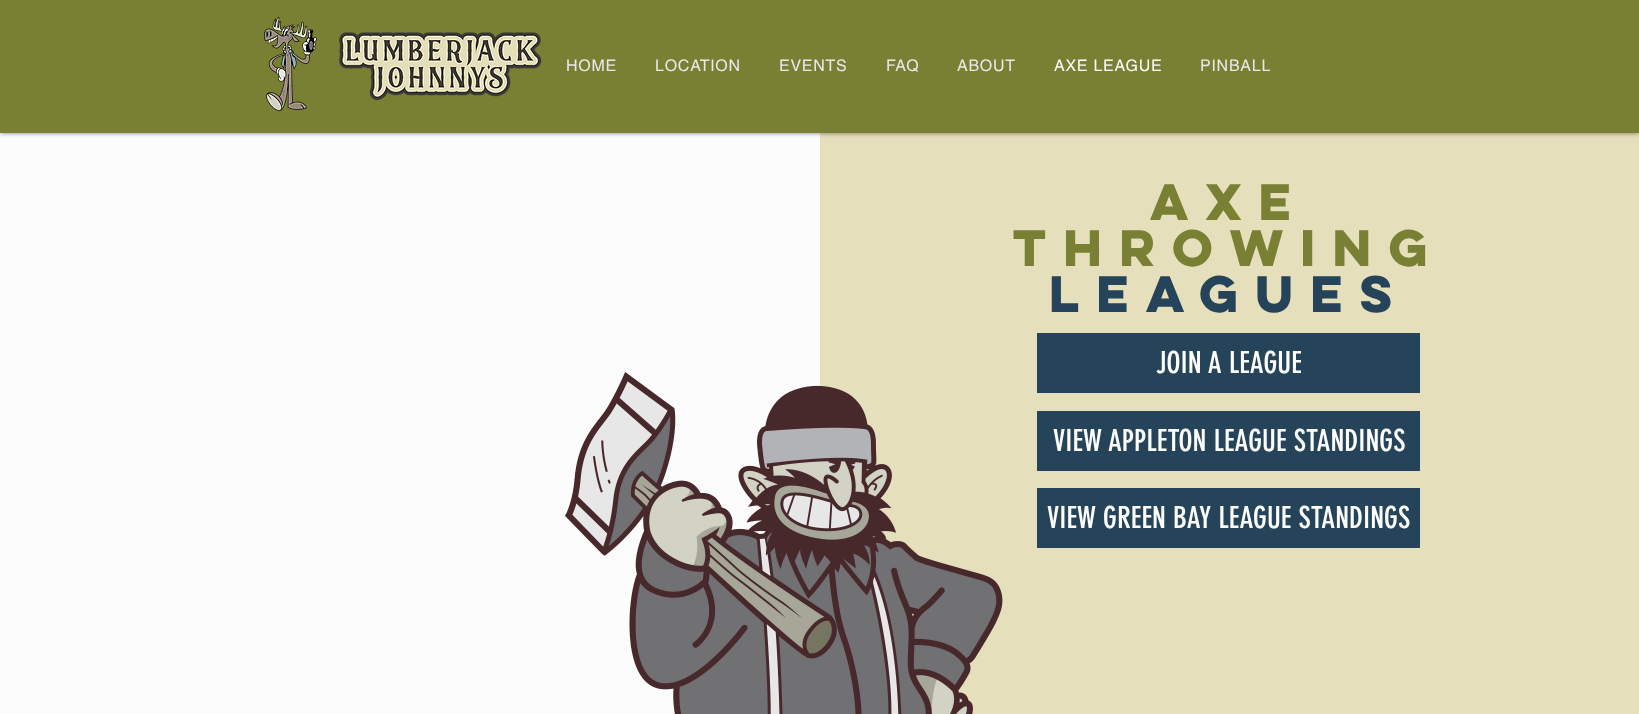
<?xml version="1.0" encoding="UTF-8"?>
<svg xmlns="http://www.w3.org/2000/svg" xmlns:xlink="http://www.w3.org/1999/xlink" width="1639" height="714">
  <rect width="100%" height="100%" fill="#fcfcfc" />
  <rect x="820" y="133" width="819" height="581" fill="#e5dfbc" />
  <rect width="1639" height="133" fill="#000000" fill-opacity="0.5" filter="blur(2.5px)" />
  <rect width="1639" height="133" fill="#7a8033" />
  <image x="263" y="17" width="54" height="94" xlink:href="image1.png" />
  <image x="339" y="32" width="203" height="69" xlink:href="image2.png" />
  <image x="565" y="372" width="438" height="342" xlink:href="image3.png" />
  <rect x="1037" y="333" width="383" height="60" fill="#254359" />
  <rect x="1037" y="411" width="383" height="60" fill="#254359" />
  <rect x="1037" y="488" width="383" height="60" fill="#254359" />
  <text x="566" y="71" style="font-family: helvetica; font-size: 16px; letter-spacing: 0.75px; fill: #e8e8e8">HOME</text>
  <text x="655" y="71" style="font-family: helvetica; font-size: 16px; letter-spacing: 0.75px; fill: #e8e8e8">LOCATION</text>
  <text x="779" y="71" style="font-family: helvetica; font-size: 16px; letter-spacing: 0.75px; fill: #e8e8e8">EVENTS</text>
  <text x="886" y="71" style="font-family: helvetica; font-size: 16px; letter-spacing: 0.75px; fill: #e8e8e8">FAQ</text>
  <text x="957" y="71" style="font-family: helvetica; font-size: 16px; letter-spacing: 0.75px; fill: #e8e8e8">ABOUT</text>
  <text x="1054" y="71" style="font-family: helvetica; font-size: 16px; letter-spacing: 0.75px; fill: #fcfcfc">AXE LEAGUE</text>
  <text x="1200" y="71" style="font-family: helvetica; font-size: 16px; letter-spacing: 0.75px; fill: #e8e8e8">PINBALL</text>
  <text x="1150" y="220" style="font-family: 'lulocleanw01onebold'; font-size: 46px; font-weight: bold; letter-spacing: 7px; fill: #7a8033">AXE</text>
  <text x="1013" y="266" style="font-family: 'lulocleanw01onebold'; font-size: 46px; font-weight: bold; letter-spacing: 7px; fill: #7a8033">THROWING</text>
  <text x="1049" y="312" style="font-family: 'lulocleanw01onebold'; font-size: 46px; font-weight: bold; letter-spacing: 7px; fill: #254359">LEAGUES</text>
  <text x="1156" y="373" style="font-family: 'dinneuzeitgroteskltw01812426'; font-size: 30px; fill: #fcfcfc">JOIN A LEAGUE</text>
  <text x="1053" y="451" style="font-family: 'dinneuzeitgroteskltw01812426'; font-size: 30px; fill: #fcfcfc">VIEW APPLETON LEAGUE STANDINGS</text>
  <text x="1047" y="528" style="font-family: 'dinneuzeitgroteskltw01812426'; font-size: 30px; fill: #fcfcfc">VIEW GREEN BAY LEAGUE STANDINGS</text>
</svg>
